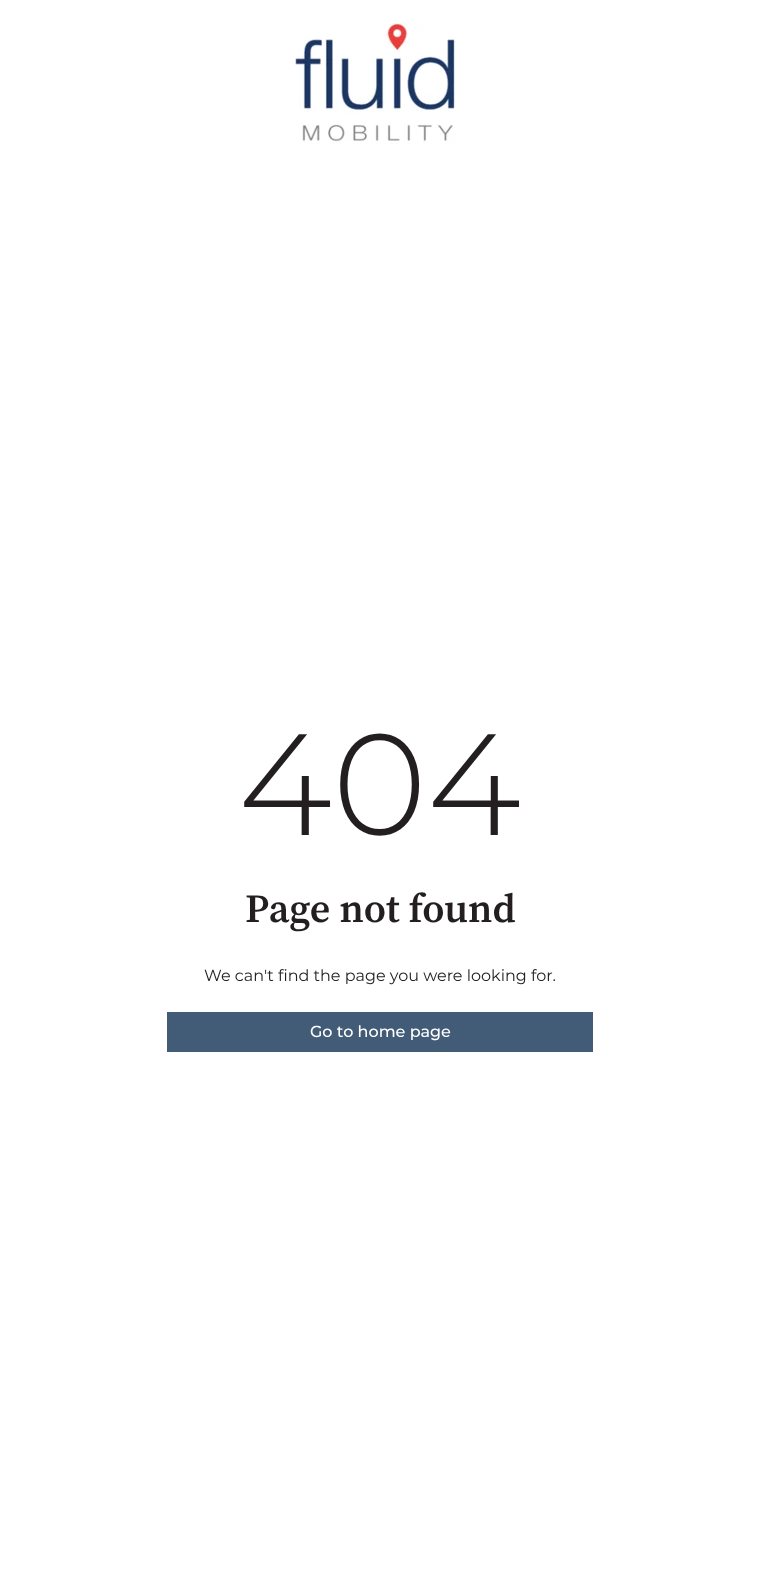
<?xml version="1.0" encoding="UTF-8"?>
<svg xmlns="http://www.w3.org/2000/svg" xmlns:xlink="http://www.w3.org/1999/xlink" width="760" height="1590">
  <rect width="100%" height="100%" fill="#ffffff" />
  <image x="295" y="23" width="161" height="121" xlink:href="image1.png" />
  <rect x="167" y="1012" width="426" height="40" fill="#425b76" />
  <text x="238" y="835" style="font-family: Montserrat; font-size: 144px; font-weight: 300; fill: #231f20">404</text>
  <text x="245" y="922" style="font-family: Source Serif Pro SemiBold; font-size: 40px; font-weight: 600; fill: #231f20">Page not found</text>
  <text x="204" y="981" style="font-family: Montserrat; font-size: 16px; fill: #231f20">We can't find the page you were looking for.</text>
  <text x="310" y="1037" style="font-family: Montserrat; font-size: 16px; font-weight: 500; fill: #ffffff">Go to home page</text>
</svg>
